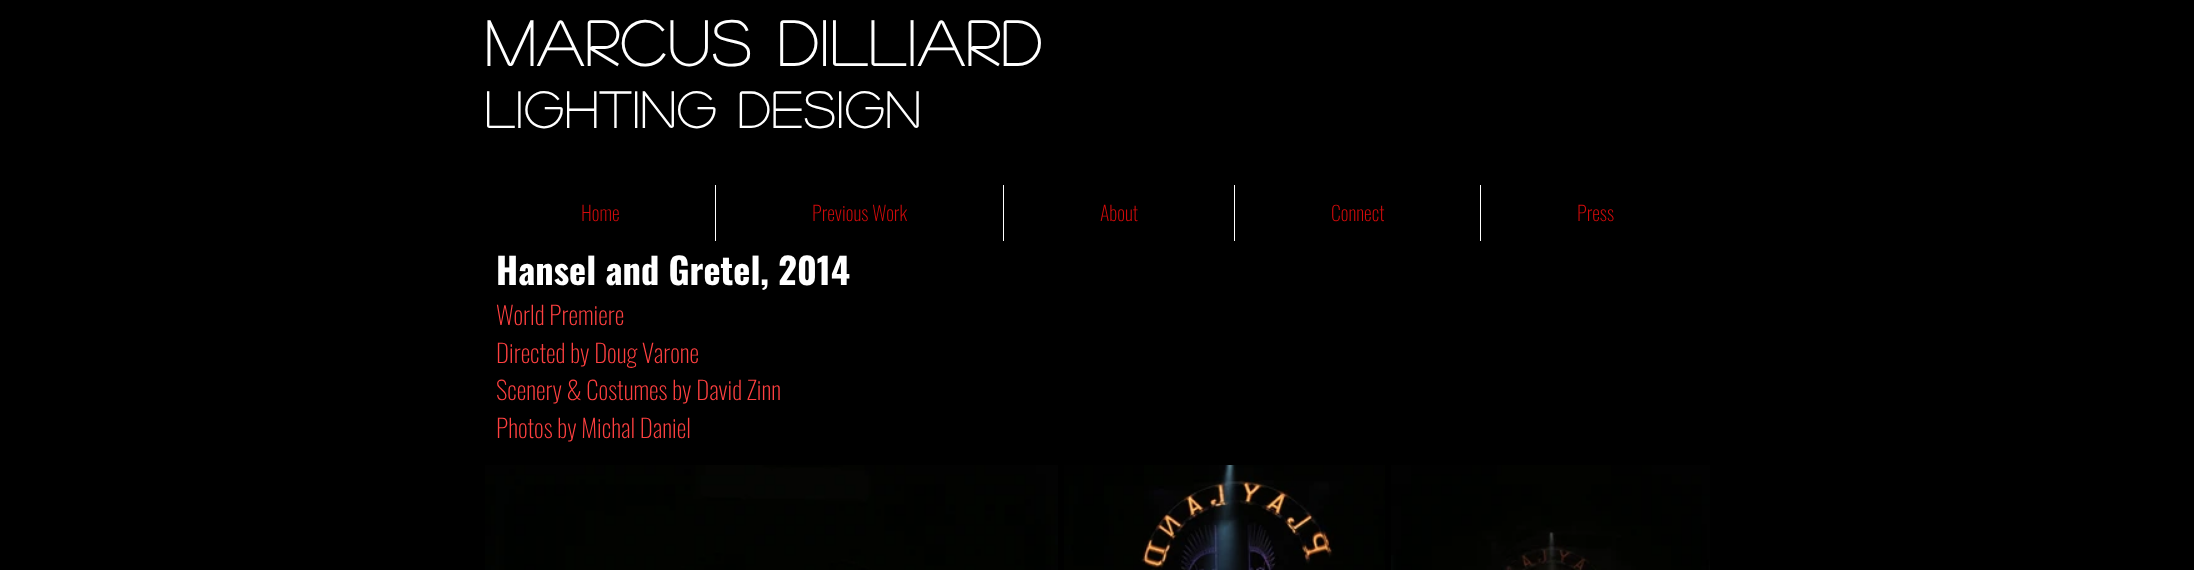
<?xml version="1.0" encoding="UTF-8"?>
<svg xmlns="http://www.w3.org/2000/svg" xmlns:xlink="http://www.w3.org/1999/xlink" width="2194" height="570">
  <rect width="100%" height="100%" fill="#000000" />
  <rect x="715" y="185" width="1" height="56" fill="#ffffff" />
  <rect x="1003" y="185" width="1" height="56" fill="#ffffff" />
  <rect x="1234" y="185" width="1" height="56" fill="#ffffff" />
  <rect x="1480" y="185" width="1" height="56" fill="#ffffff" />
  <image x="485" y="465" width="573" height="105" xlink:href="image1.png" />
  <image x="1064" y="465" width="321" height="105" xlink:href="image2.png" />
  <image x="1391" y="465" width="319" height="105" xlink:href="image3.png" />
  <text x="485" y="66" style="font-family: 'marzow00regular'; font-size: 62.5px; font-weight: bold; letter-spacing: 3.1px; fill: #ffffff">Marcus Dilliard</text>
  <text x="485" y="128" style="font-family: 'marzow00regular'; font-size: 50px; font-weight: bold; letter-spacing: 2.5px; fill: #ffffff">Lighting Design</text>
  <text x="581" y="221" style="font-family: Oswald; font-size: 20px; font-weight: 200; fill: #d40b0b">Home</text>
  <text x="812" y="221" style="font-family: Oswald; font-size: 20px; font-weight: 200; fill: #d40b0b">Previous Work</text>
  <text x="1100" y="221" style="font-family: Oswald; font-size: 20px; font-weight: 200; fill: #d40b0b">About</text>
  <text x="1331" y="221" style="font-family: Oswald; font-size: 20px; font-weight: 200; fill: #d40b0b">Connect</text>
  <text x="1577" y="221" style="font-family: Oswald; font-size: 20px; font-weight: 200; fill: #d40b0b">Press</text>
  <text x="496" y="285" style="font-family: Oswald; font-size: 36.25px; font-weight: bold; fill: #ffffff">Hansel and Gretel, 2014</text>
  <text x="496" y="325" style="font-family: Oswald; font-size: 25px; font-weight: 200; fill: #ff4040">World Premiere</text>
  <text x="496" y="363" style="font-family: Oswald; font-size: 25px; font-weight: 200; fill: #ff4040">Directed by Doug Varone</text>
  <text x="496" y="400" style="font-family: Oswald; font-size: 25px; font-weight: 200; fill: #ff4040">Scenery &amp; Costumes by David Zinn</text>
  <text x="496" y="438" style="font-family: Oswald; font-size: 25px; font-weight: 200; fill: #ff4040">Photos by Michal Daniel</text>
</svg>
